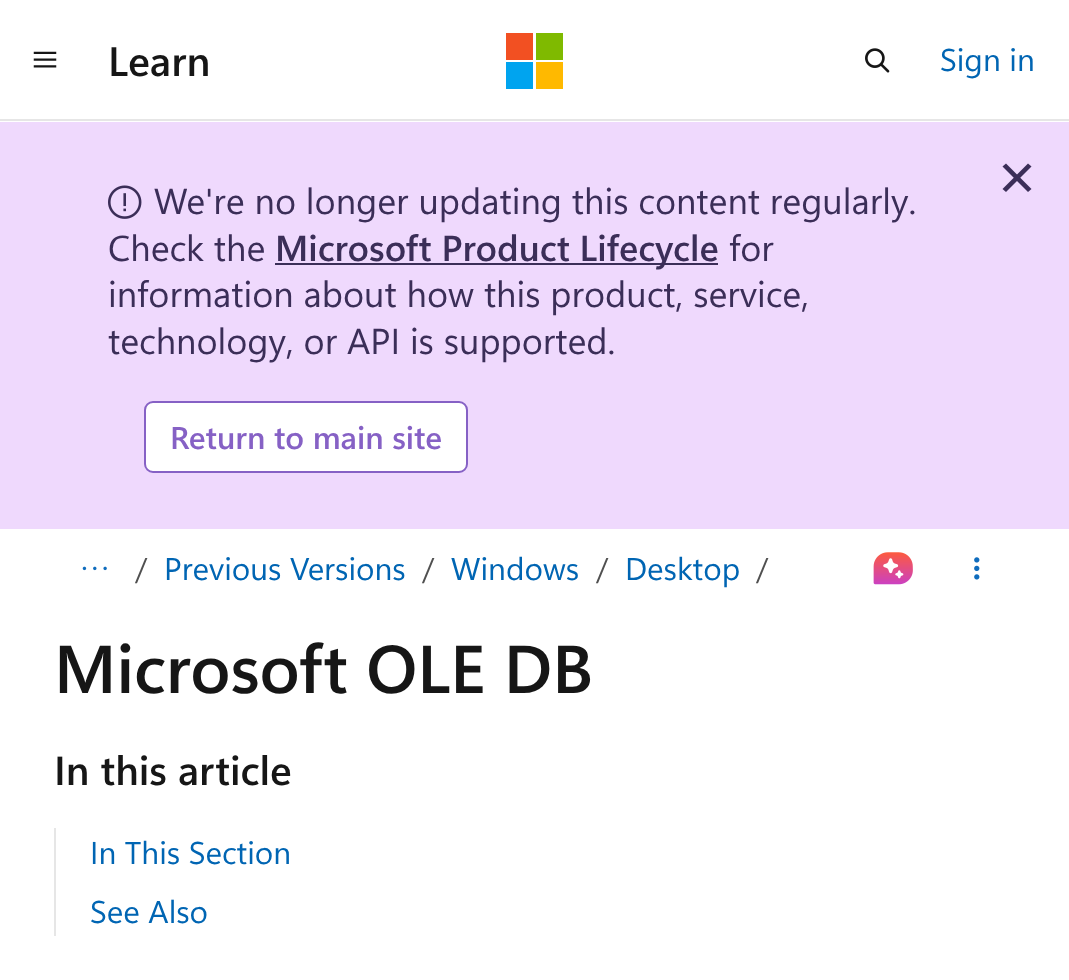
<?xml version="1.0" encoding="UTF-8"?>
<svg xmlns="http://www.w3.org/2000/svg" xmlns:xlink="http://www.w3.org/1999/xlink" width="1069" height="980">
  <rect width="100%" height="100%" fill="#ffffff" />
  <rect y="119" width="1069" height="2" fill="#e6e6e6" />
  <image x="33" y="51" width="24" height="17" xlink:href="image1.png" />
  <rect x="506" y="33" width="27" height="27" fill="#f25022" />
  <rect x="536" y="33" width="27" height="27" fill="#7fba00" />
  <rect x="506" y="62" width="27" height="27" fill="#00a4ef" />
  <rect x="536" y="62" width="27" height="27" fill="#ffb900" />
  <image x="865" y="48" width="25" height="25" xlink:href="image2.png" />
  <rect y="122" width="1069" height="407" fill="#efd9fd" />
  <path d="M 1006 163.5 l 25.5 25.5 l -3.5 3 l -25.5 -25.5 z" fill="#3b2e58" />
  <path d="M 1028 163.5 l 3.5 3 l -25.5 25.5 l -3.5 -3 z" fill="#3b2e58" />
  <image x="108" y="185" width="34" height="34" xlink:href="image3.png" />
  <rect x="275" y="263" width="443" height="2" fill="#3b2e58" />
  <rect x="145" y="402" width="322" height="70" rx="8" fill="#ffffff" stroke="#8661c5" stroke-width="2" />
  <image x="82" y="566" width="25" height="5" xlink:href="image4.png" />
  <image x="873" y="552" width="40" height="33" xlink:href="image5.png" />
  <image x="974" y="557" width="6" height="23" xlink:href="image6.png" />
  <rect x="54" y="828" width="2" height="108" fill="#e6e6e6" />
  <text x="108" y="76" style="font-family: Segoe UI; font-size: 41px; font-weight: 600; fill: #161616">Learn</text>
  <text x="940" y="71" style="font-family: Segoe UI; font-size: 31.5px; fill: #0065b3">Sign in</text>
  <text x="154" y="214" style="font-family: Segoe UI; font-size: 36px; fill: #3b2e58">We're no longer updating this content regularly.</text>
  <text x="108" y="261" style="font-family: Segoe UI; font-size: 36px; fill: #3b2e58">Check the</text>
  <text x="275" y="261" style="font-family: Segoe UI; font-size: 36px; font-weight: 600; fill: #3b2e58">Microsoft Product Lifecycle</text>
  <text x="729" y="261" style="font-family: Segoe UI; font-size: 36px; fill: #3b2e58">for</text>
  <text x="108" y="307" style="font-family: Segoe UI; font-size: 36px; fill: #3b2e58">information about how this product, service,</text>
  <text x="108" y="354" style="font-family: Segoe UI; font-size: 36px; fill: #3b2e58">technology, or API is supported.</text>
  <text x="170" y="449" style="font-family: Segoe UI; font-size: 31.5px; font-weight: 600; fill: #8661c5">Return to main site</text>
  <text x="135" y="580" style="font-family: Segoe UI; font-size: 31.5px; fill: #505050">/</text>
  <text x="164" y="580" style="font-family: Segoe UI; font-size: 31.5px; fill: #0065b3">Previous Versions</text>
  <text x="422" y="580" style="font-family: Segoe UI; font-size: 31.5px; fill: #505050">/</text>
  <text x="451" y="580" style="font-family: Segoe UI; font-size: 31.5px; fill: #0065b3">Windows</text>
  <text x="596" y="580" style="font-family: Segoe UI; font-size: 31.5px; fill: #505050">/</text>
  <text x="625" y="580" style="font-family: Segoe UI; font-size: 31.5px; fill: #0065b3">Desktop</text>
  <text x="756" y="580" style="font-family: Segoe UI; font-size: 31.5px; fill: #505050">/</text>
  <text x="54" y="693" style="font-family: Segoe UI; font-size: 67.5px; font-weight: 600; fill: #161616">Microsoft OLE DB</text>
  <text x="54" y="785" style="font-family: Segoe UI; font-size: 40.5px; font-weight: 600; fill: #161616">In this article</text>
  <text x="90" y="864" style="font-family: Segoe UI; font-size: 31.5px; fill: #0065b3">In This Section</text>
  <text x="90" y="923" style="font-family: Segoe UI; font-size: 31.5px; fill: #0065b3">See Also</text>
</svg>
